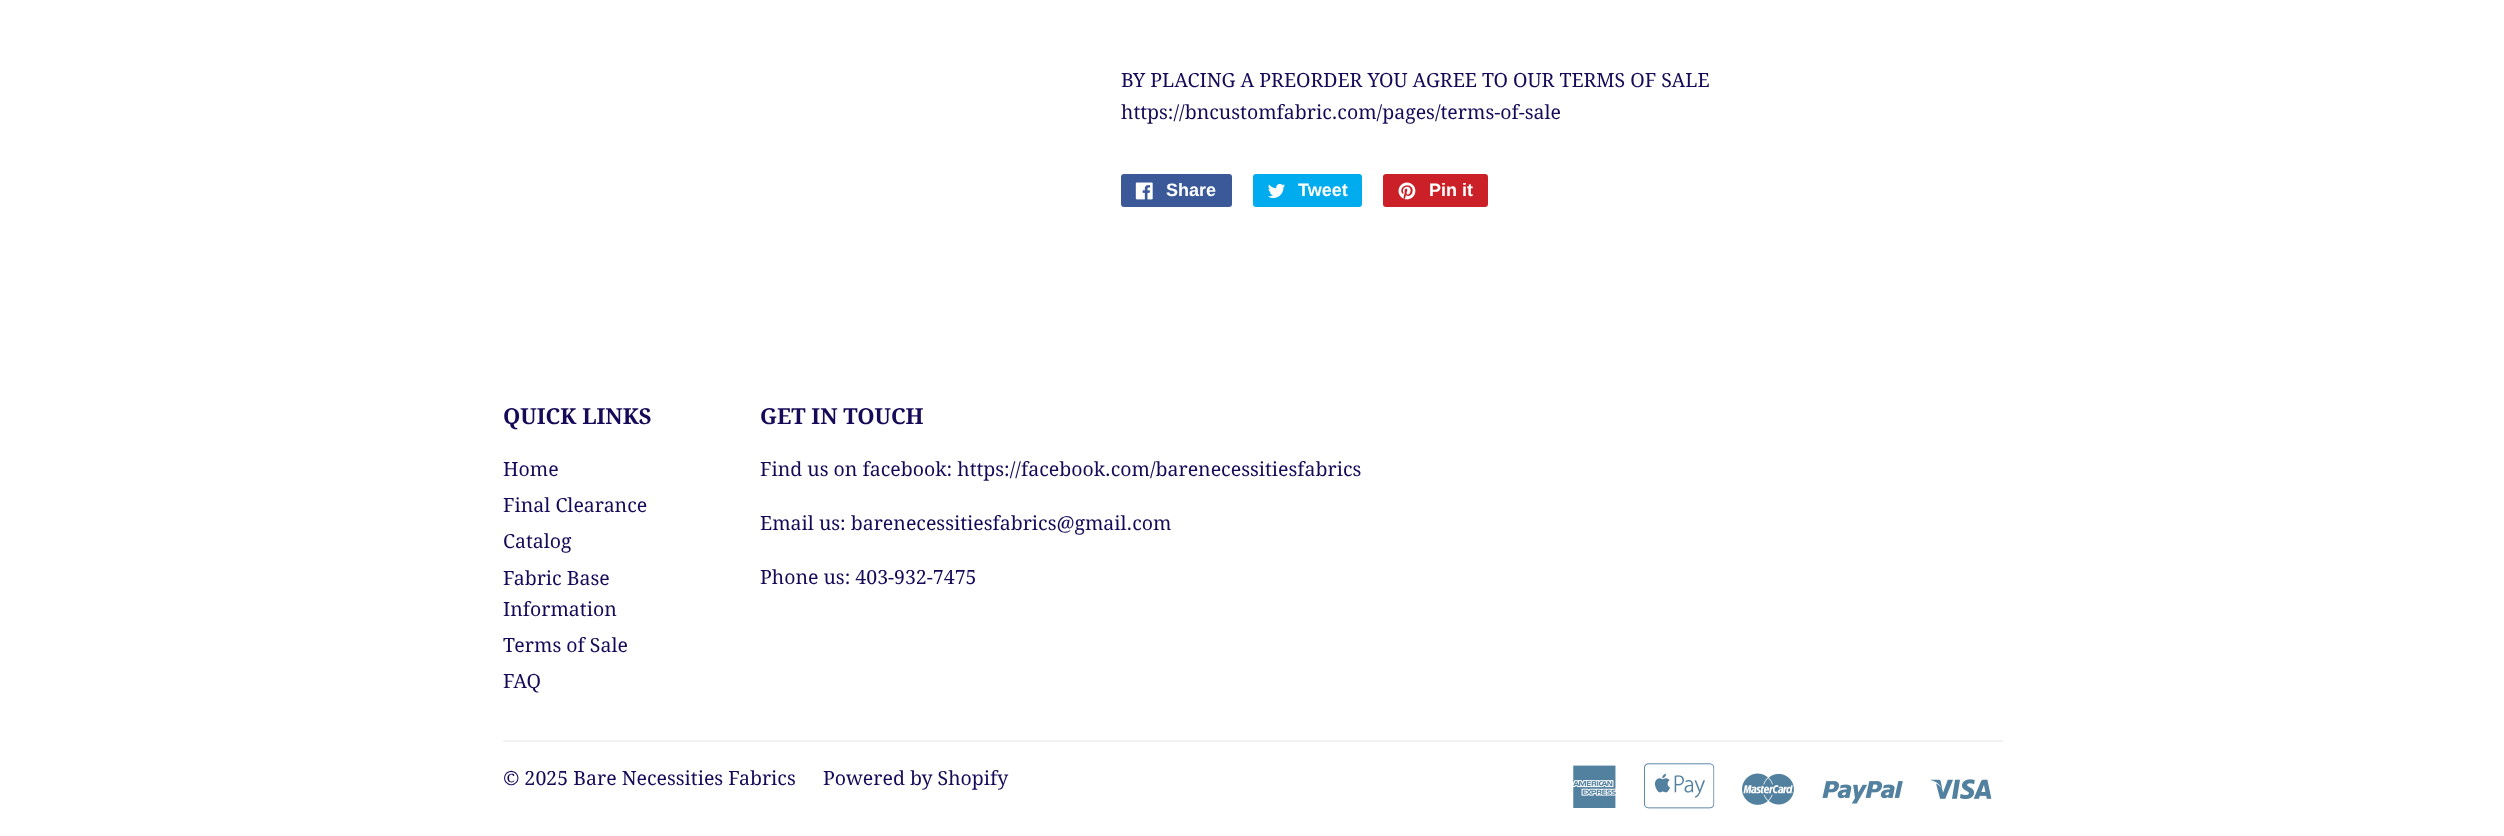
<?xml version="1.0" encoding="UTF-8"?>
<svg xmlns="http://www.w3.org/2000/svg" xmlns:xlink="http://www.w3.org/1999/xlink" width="2504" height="836">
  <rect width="100%" height="100%" fill="#ffffff" />
  <rect x="1121" y="174" width="111" height="33" rx="3" fill="#3b5998" />
  <image x="1135" y="182" width="18" height="18" xlink:href="image1.png" />
  <rect x="1253" y="174" width="109" height="33" rx="3" fill="#00aced" />
  <image x="1268" y="183" width="17" height="15" xlink:href="image2.png" />
  <rect x="1383" y="174" width="105" height="33" rx="3" fill="#cb2027" />
  <image x="1398" y="182" width="18" height="18" xlink:href="image3.png" />
  <rect x="503" y="740" width="1500" height="2" fill="#f2f2f2" />
  <image x="1573" y="765" width="43" height="43" xlink:href="image4.png" />
  <image x="1644" y="763" width="71" height="46" xlink:href="image5.png" />
  <image x="1742" y="773" width="52" height="32" xlink:href="image6.png" />
  <image x="1822" y="781" width="81" height="23" xlink:href="image7.png" />
  <image x="1930" y="779" width="62" height="20" xlink:href="image8.png" />
  <text x="1121" y="87" style="font-family: Droid Serif; font-size: 19.5px; fill: #150958">BY PLACING A PREORDER YOU AGREE TO OUR TERMS OF SALE</text>
  <text x="1121" y="119" style="font-family: Droid Serif; font-size: 19.5px; fill: #150958">https://bncustomfabric.com/pages/terms-of-sale</text>
  <text x="1166" y="196" style="font-family: Liberation Sans; font-size: 18px; font-weight: bold; fill: #ffffff">Share</text>
  <text x="1298" y="196" style="font-family: Liberation Sans; font-size: 18px; font-weight: bold; fill: #ffffff">Tweet</text>
  <text x="1429" y="196" style="font-family: Liberation Sans; font-size: 18px; font-weight: bold; fill: #ffffff">Pin it</text>
  <text x="503" y="424" style="font-family: Droid Serif; font-size: 22px; font-weight: bold; fill: #150958">QUICK LINKS</text>
  <text x="503" y="476" style="font-family: Droid Serif; font-size: 19.5px; fill: #150958">Home</text>
  <text x="503" y="512" style="font-family: Droid Serif; font-size: 19.5px; fill: #150958">Final Clearance</text>
  <text x="503" y="548" style="font-family: Droid Serif; font-size: 19.5px; fill: #150958">Catalog</text>
  <text x="503" y="585" style="font-family: Droid Serif; font-size: 19.5px; fill: #150958">Fabric Base</text>
  <text x="503" y="616" style="font-family: Droid Serif; font-size: 19.5px; fill: #150958">Information</text>
  <text x="503" y="652" style="font-family: Droid Serif; font-size: 19.5px; fill: #150958">Terms of Sale</text>
  <text x="503" y="688" style="font-family: Droid Serif; font-size: 19.5px; fill: #150958">FAQ</text>
  <text x="760" y="424" style="font-family: Droid Serif; font-size: 22px; font-weight: bold; fill: #150958">GET IN TOUCH</text>
  <text x="760" y="476" style="font-family: Droid Serif; font-size: 19.5px; fill: #150958">Find us on facebook: https://facebook.com/barenecessitiesfabrics</text>
  <text x="760" y="530" style="font-family: Droid Serif; font-size: 19.5px; fill: #150958">Email us: barenecessitiesfabrics@gmail.com</text>
  <text x="760" y="584" style="font-family: Droid Serif; font-size: 19.5px; fill: #150958">Phone us: 403-932-7475</text>
  <text x="503" y="785" style="font-family: Droid Serif; font-size: 19.5px; fill: #150958">© 2025 Bare Necessities Fabrics</text>
  <text x="823" y="785" style="font-family: Droid Serif; font-size: 19.5px; fill: #150958">Powered by Shopify</text>
</svg>
